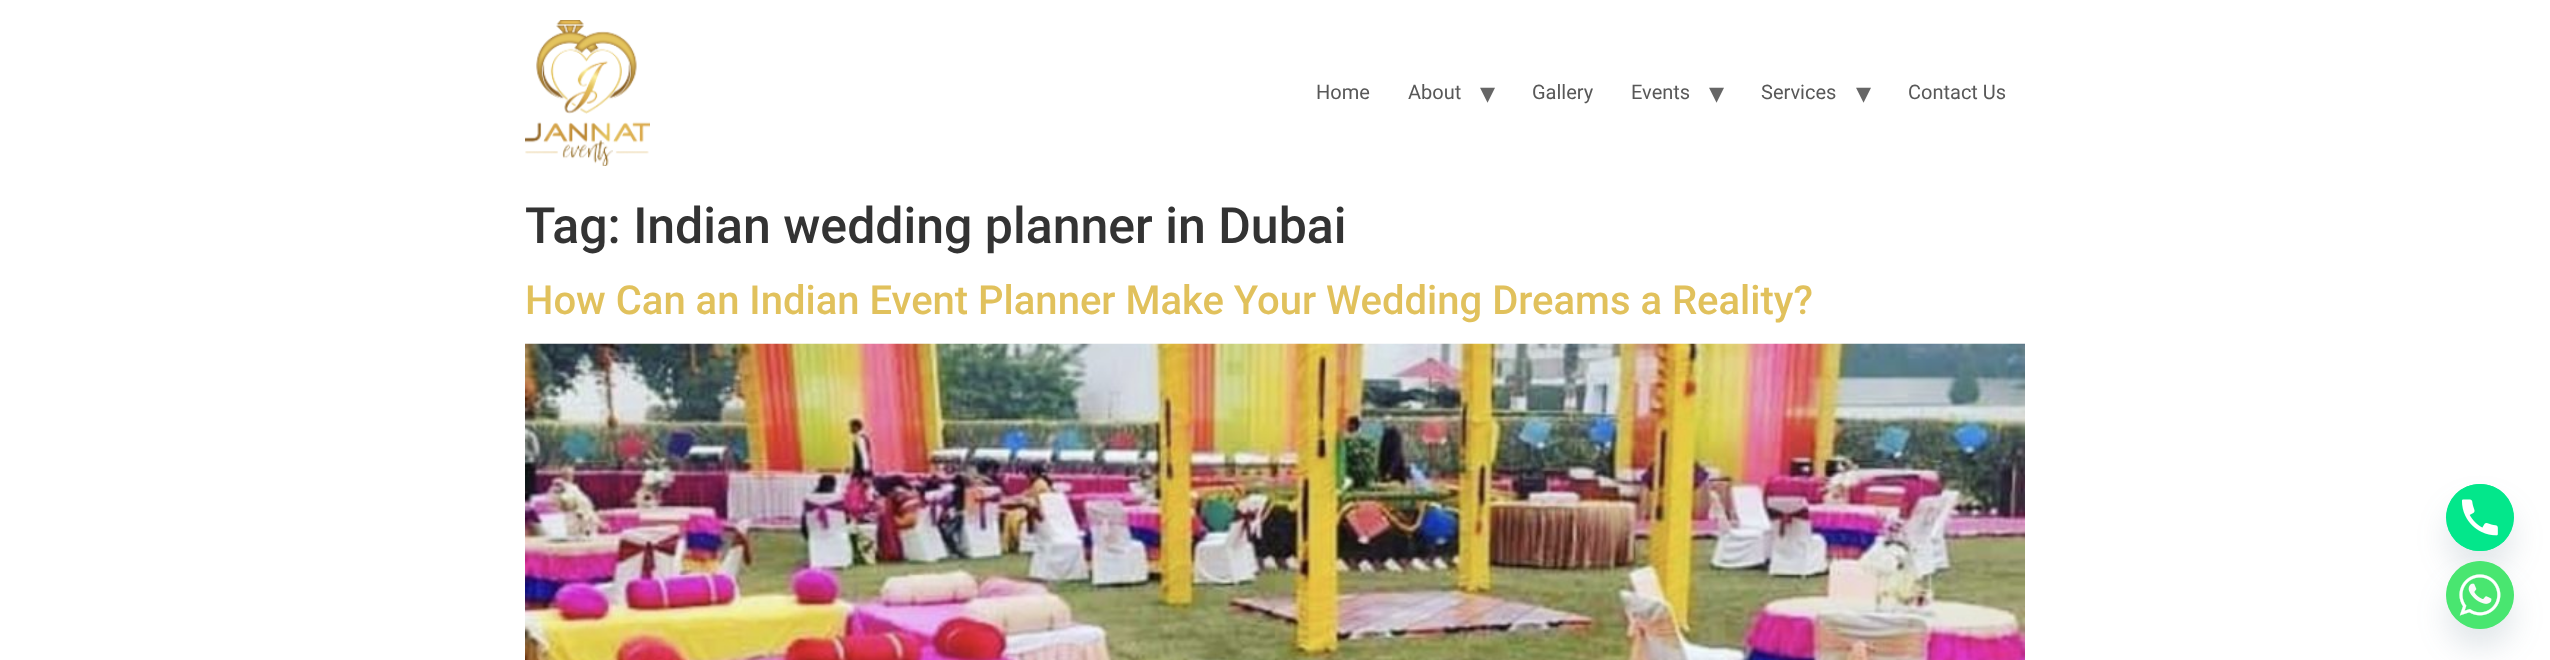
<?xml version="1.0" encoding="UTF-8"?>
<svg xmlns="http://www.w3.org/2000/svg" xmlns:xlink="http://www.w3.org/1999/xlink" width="2550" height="660">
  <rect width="100%" height="100%" fill="#ffffff" />
  <image x="525" y="20" width="125" height="146" xlink:href="image1.png" />
  <image x="525" y="343" width="1500" height="317" xlink:href="image2.png" />
  <rect x="2446" y="504" width="68" height="67" rx="33.5" fill="#49687e" fill-opacity="0.16" filter="blur(15px)" />
  <rect x="2446" y="484" width="68" height="67" rx="33.5" fill="#03e78b" />
  <image x="2446" y="484" width="68" height="67" xlink:href="image3.png" />
  <rect x="2446" y="581" width="68" height="68" rx="34" fill="#49687e" fill-opacity="0.16" filter="blur(15px)" />
  <circle cx="2480" cy="595" r="34" fill="#49e670" />
  <image x="2446" y="561" width="68" height="68" xlink:href="image4.png" />
  <text x="1316" y="99" style="font-family: Roboto; font-size: 20px; fill: #585858">Home</text>
  <text x="1408" y="99" style="font-family: Roboto; font-size: 20px; fill: #585858">About</text>
  <text x="1480" y="103" style="font-family: DejaVu Sans; font-size: 30px; fill: #666666">▾</text>
  <text x="1532" y="99" style="font-family: Roboto; font-size: 20px; fill: #585858">Gallery</text>
  <text x="1631" y="99" style="font-family: Roboto; font-size: 20px; fill: #585858">Events</text>
  <text x="1709" y="103" style="font-family: DejaVu Sans; font-size: 30px; fill: #666666">▾</text>
  <text x="1761" y="99" style="font-family: Roboto; font-size: 20px; fill: #585858">Services</text>
  <text x="1856" y="103" style="font-family: DejaVu Sans; font-size: 30px; fill: #666666">▾</text>
  <text x="1908" y="99" style="font-family: Roboto; font-size: 20px; fill: #585858">Contact Us</text>
  <text x="525" y="243" style="font-family: Roboto; font-size: 50px; font-weight: 500; fill: #333333">Tag: Indian wedding planner in Dubai</text>
  <text x="525" y="314" style="font-family: Roboto; font-size: 40px; font-weight: 500; fill: #e1c15c">How Can an Indian Event Planner Make Your Wedding Dreams a Reality?</text>
</svg>
